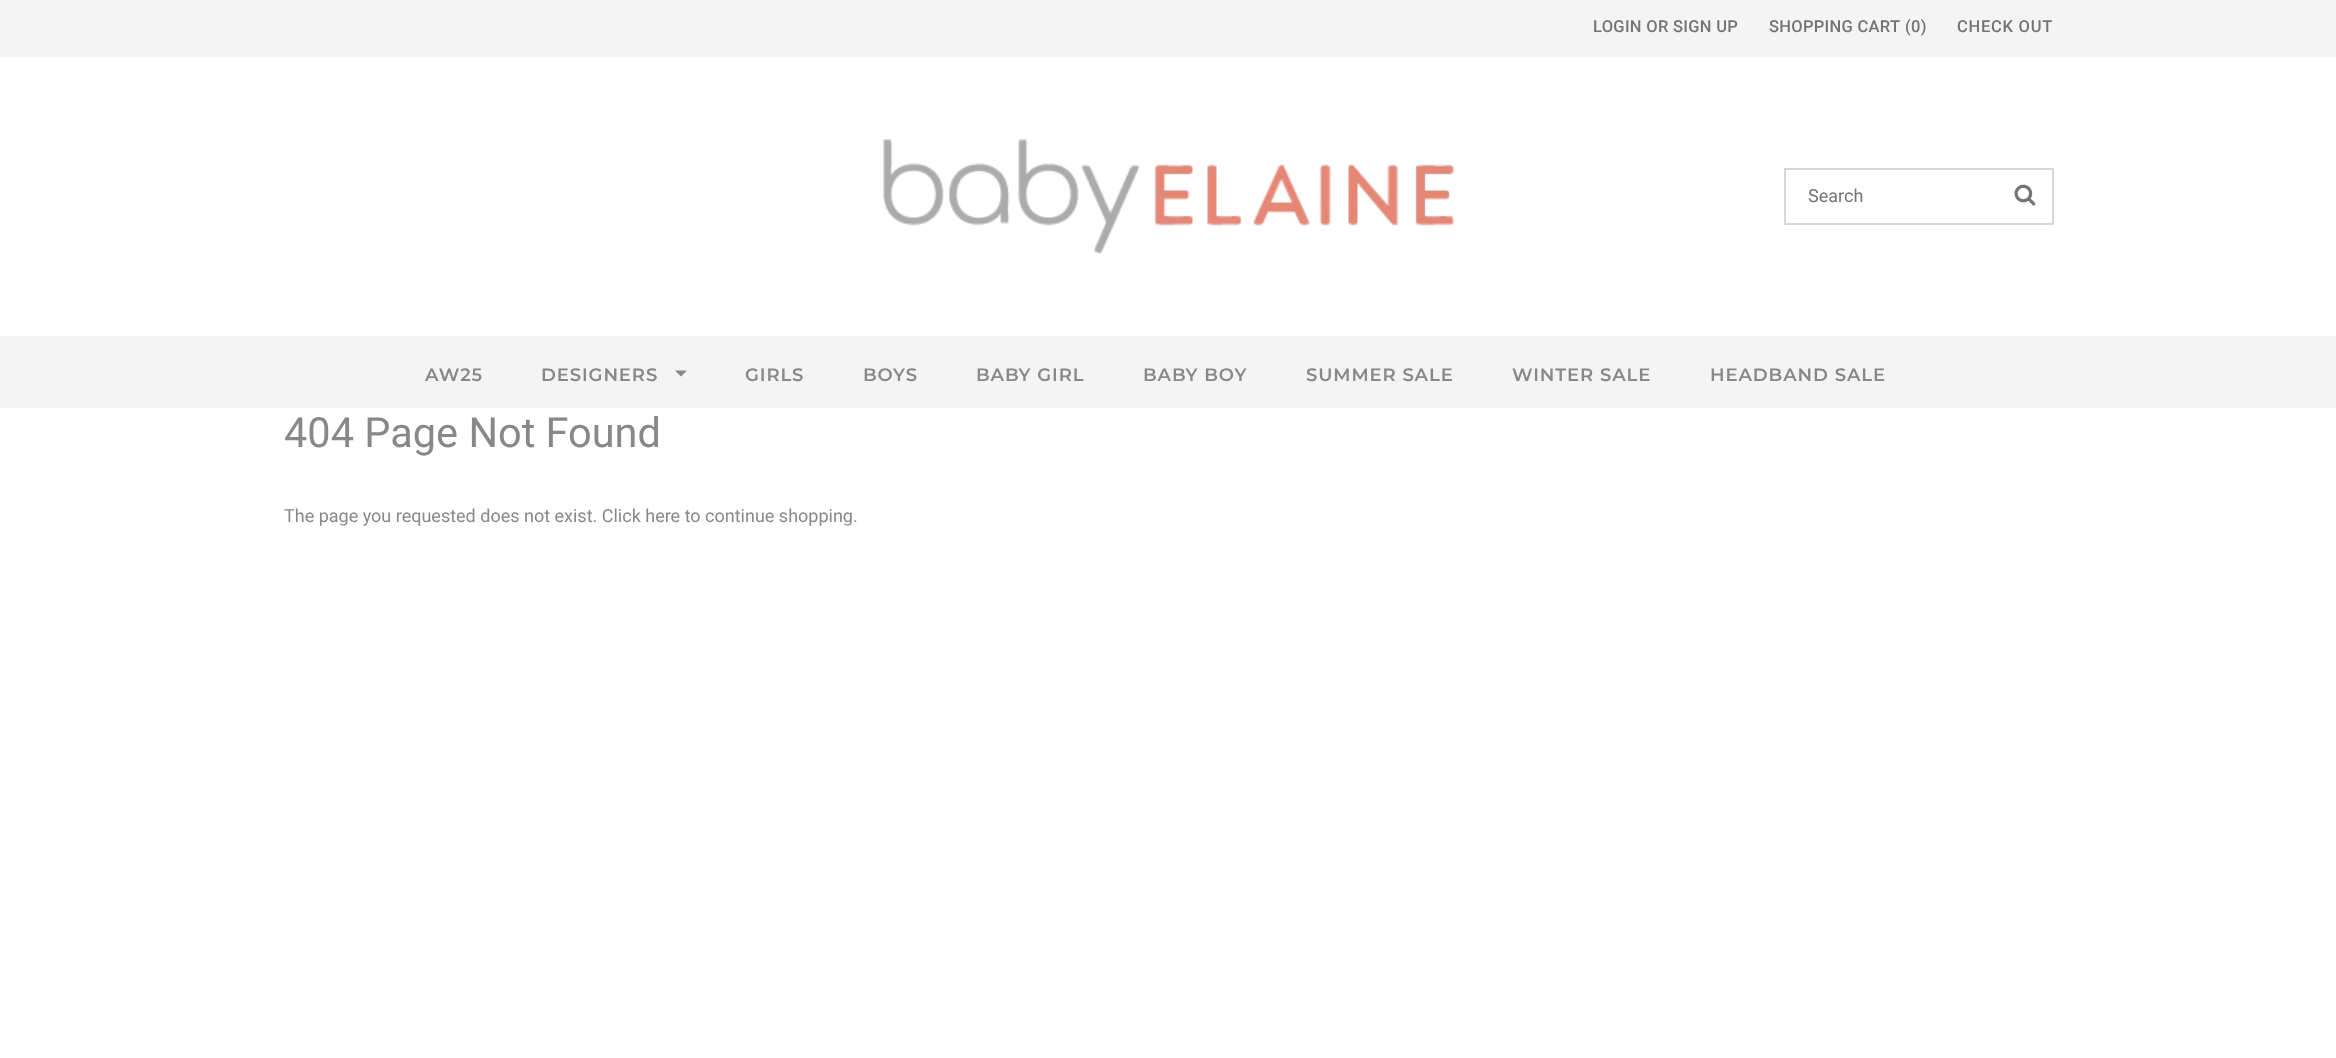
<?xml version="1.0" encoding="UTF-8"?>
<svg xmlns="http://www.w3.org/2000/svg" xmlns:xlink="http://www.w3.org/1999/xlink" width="2336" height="1058">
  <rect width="100%" height="100%" fill="#ffffff" />
  <rect width="2336" height="57" fill="#f4f4f4" />
  <image x="883" y="139" width="571" height="115" xlink:href="image1.png" />
  <rect x="1785" y="169" width="268" height="55" fill="none" stroke="#d7d7d7" stroke-width="2" />
  <image x="2014" y="184" width="22" height="22" xlink:href="image2.png" />
  <rect y="336" width="2336" height="72" fill="#f4f4f4" />
  <path d="M 675 370.5 h 12 l -6 6 z" fill="#888888" />
  <text x="1593" y="32" style="font-family: Roboto; font-size: 16.5px; font-weight: 500; letter-spacing: 0.3px; fill: #747474">LOGIN OR SIGN UP</text>
  <text x="1769" y="32" style="font-family: Roboto; font-size: 16.5px; font-weight: 500; letter-spacing: 0.3px; fill: #747474">SHOPPING CART</text>
  <text x="1905" y="32" style="font-family: Roboto; font-size: 16.5px; font-weight: 500; letter-spacing: 0.3px; fill: #747474">(0)</text>
  <text x="1957" y="32" style="font-family: Roboto; font-size: 16.5px; font-weight: 500; letter-spacing: 0.75px; fill: #747474">CHECK OUT</text>
  <text x="1808" y="202" style="font-family: Roboto; font-size: 18px; fill: #747474">Search</text>
  <text x="425" y="381" style="font-family: Montserrat; font-size: 18px; font-weight: 600; letter-spacing: 0.9px; fill: #888888">AW25</text>
  <text x="541" y="381" style="font-family: Montserrat; font-size: 18px; font-weight: 600; letter-spacing: 0.9px; fill: #888888">DESIGNERS</text>
  <text x="745" y="381" style="font-family: Montserrat; font-size: 18px; font-weight: 600; letter-spacing: 0.9px; fill: #888888">GIRLS</text>
  <text x="863" y="381" style="font-family: Montserrat; font-size: 18px; font-weight: 600; letter-spacing: 0.9px; fill: #888888">BOYS</text>
  <text x="976" y="381" style="font-family: Montserrat; font-size: 18px; font-weight: 600; letter-spacing: 0.9px; fill: #888888">BABY GIRL</text>
  <text x="1143" y="381" style="font-family: Montserrat; font-size: 18px; font-weight: 600; letter-spacing: 0.9px; fill: #888888">BABY BOY</text>
  <text x="1306" y="381" style="font-family: Montserrat; font-size: 18px; font-weight: 600; letter-spacing: 0.9px; fill: #888888">SUMMER SALE</text>
  <text x="1512" y="381" style="font-family: Montserrat; font-size: 18px; font-weight: 600; letter-spacing: 0.9px; fill: #888888">WINTER SALE</text>
  <text x="1710" y="381" style="font-family: Montserrat; font-size: 18px; font-weight: 600; letter-spacing: 0.9px; fill: #888888">HEADBAND SALE</text>
  <text x="284" y="447" style="font-family: Roboto; font-size: 41.5px; fill: #888888">404 Page Not Found</text>
  <text x="284" y="522" style="font-family: Roboto; font-size: 18px; fill: #888888">The page you requested does not exist. Click here to continue shopping.</text>
</svg>
